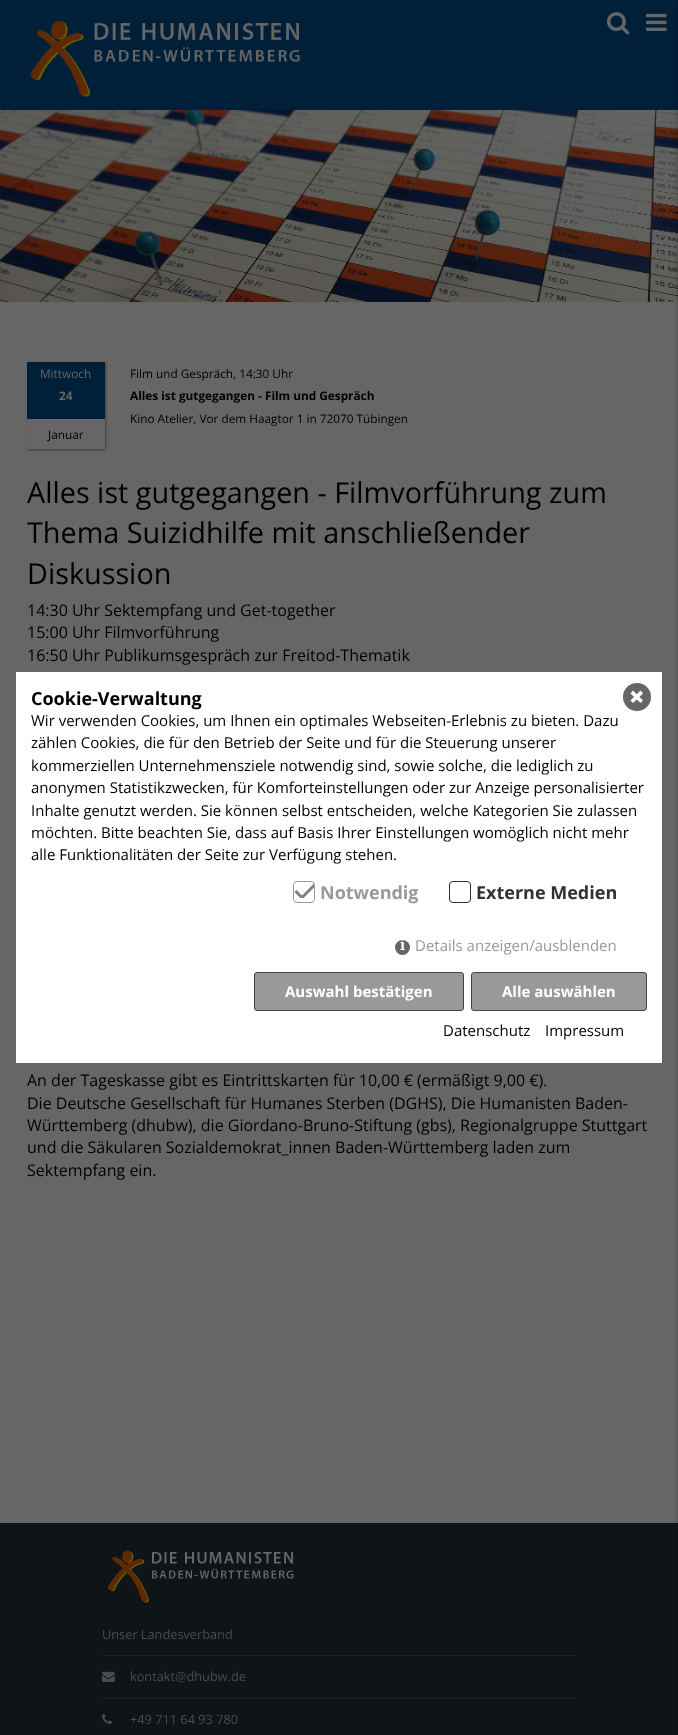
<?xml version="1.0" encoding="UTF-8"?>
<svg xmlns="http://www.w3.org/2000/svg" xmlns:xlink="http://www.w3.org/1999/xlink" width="678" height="1735">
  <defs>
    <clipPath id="clip1"><path d="M 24 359 h 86 v 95 h -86 z m 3 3 h 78 v 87 h -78 z" clip-rule="evenodd" /></clipPath>
    <clipPath id="clip2"><rect x="294" y="878" width="20" height="20" /></clipPath>
  </defs>
  <rect width="100%" height="100%" fill="#666666" />
  <rect width="678" height="110" fill="#00203a" />
  <image x="30" y="20" width="270" height="77" xlink:href="image1.png" />
  <image x="607" y="12" width="23" height="23" xlink:href="image2.png" />
  <image x="646" y="13" width="21" height="18" xlink:href="image3.png" />
  <image x="0" y="110" width="678" height="192" xlink:href="image4.png" />
  <rect y="1523" width="678" height="212" fill="#0f1416" />
  <rect x="678" y="2" width="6" height="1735" fill="#000000" fill-opacity="0.3" filter="blur(2px)" />
  <g clip-path="url(#clip1)">
    <rect x="28" y="363" width="78" height="87" fill="#3d3d3d" filter="blur(1px)" />
  </g>
  <rect x="27" y="362" width="78" height="57" fill="#00203a" />
  <rect x="16" y="672" width="646" height="391" fill="#ffffff" />
  <circle cx="637" cy="697" r="14" fill="#666666" />
  <path d="M 640.5 690.5 l 2.5 3 l -10 9.5 l -2.5 -2.5 z" fill="#ffffff" />
  <path d="M 630.5 693.5 l 2.5 -3 l 10 10 l -2.5 2.5 z" fill="#ffffff" />
  <g clip-path="url(#clip2)">
    <path d="M 295.5 891 l 6.5 6.5 l 15 -15" fill="none" stroke="#808080" stroke-width="3" />
  </g>
  <rect x="293.5" y="881.5" width="21" height="21" rx="3.5" fill="none" stroke="#999999" />
  <rect x="449.5" y="881.5" width="21" height="21" rx="3.5" fill="none" stroke="#333333" />
  <circle cx="402.5" cy="947.5" r="7.5" fill="#666666" />
  <rect x="254.5" y="972.5" width="209" height="38" rx="2.5" fill="#999999" stroke="#444444" />
  <rect x="471.5" y="972.5" width="175" height="38" rx="2.5" fill="#999999" stroke="#444444" />
  <image x="108" y="1550" width="186" height="53" xlink:href="image5.png" />
  <rect x="102" y="1655" width="474" height="1" fill="#1f2426" />
  <rect x="102" y="1698" width="474" height="1" fill="#1f2426" />
  <image x="102" y="1671" width="13" height="11" xlink:href="image6.png" />
  <image x="102" y="1714" width="10" height="10" xlink:href="image7.png" />
  <text x="40" y="378" style="font-family: Open Sans; font-size: 11.8px; fill: #666666">Mittwoch</text>
  <text x="59" y="400" style="font-family: Open Sans; font-size: 11.8px; font-weight: bold; fill: #666666">24</text>
  <text x="48" y="439" style="font-family: Open Sans; font-size: 11.8px; fill: #000000">Januar</text>
  <text x="130" y="378" style="font-family: Open Sans; font-size: 11.8px; fill: #000000">Film und Gespräch, 14:30 Uhr</text>
  <text x="130" y="400" style="font-family: Open Sans; font-size: 11.8px; font-weight: bold; fill: #000000">Alles ist gutgegangen - Film und Gespräch</text>
  <text x="130" y="423" style="font-family: Open Sans; font-size: 11.8px; fill: #000000">Kino Atelier, Vor dem Haagtor 1 in 72070 Tübingen</text>
  <text x="27" y="503" style="font-family: Open Sans; font-size: 28.8px; fill: #000000">Alles ist gutgegangen - Filmvorführung zum</text>
  <text x="27" y="543" style="font-family: Open Sans; font-size: 28.8px; fill: #000000">Thema Suizidhilfe mit anschließender</text>
  <text x="27" y="584" style="font-family: Open Sans; font-size: 28.8px; fill: #000000">Diskussion</text>
  <text x="27" y="616" style="font-family: Open Sans; font-size: 16px; fill: #000000">14:30 Uhr Sektempfang und Get-together</text>
  <text x="27" y="638" style="font-family: Open Sans; font-size: 16px; fill: #000000">15:00 Uhr Filmvorführung</text>
  <text x="27" y="661" style="font-family: Open Sans; font-size: 16px; fill: #000000">16:50 Uhr Publikumsgespräch zur Freitod-Thematik</text>
  <text x="27" y="1086" style="font-family: Open Sans; font-size: 16px; fill: #000000">An der Tageskasse gibt es Eintrittskarten für 10,00 € (ermäßigt 9,00 €).</text>
  <text x="27" y="1109" style="font-family: Open Sans; font-size: 16px; fill: #000000">Die Deutsche Gesellschaft für Humanes Sterben (DGHS), Die Humanisten Baden-</text>
  <text x="27" y="1131" style="font-family: Open Sans; font-size: 16px; fill: #000000">Württemberg (dhubw), die Giordano-Bruno-Stiftung (gbs), Regionalgruppe Stuttgart</text>
  <text x="27" y="1153" style="font-family: Open Sans; font-size: 16px; fill: #000000">und die Säkularen Sozialdemokrat_innen Baden-Württemberg laden zum</text>
  <text x="27" y="1176" style="font-family: Open Sans; font-size: 16px; fill: #000000">Sektempfang ein.</text>
  <text x="31" y="705" style="font-family: Open Sans; font-size: 18px; font-weight: bold; fill: #000000">Cookie-Verwaltung</text>
  <text x="31" y="726" style="font-family: Open Sans; font-size: 15px; fill: #000000">Wir verwenden Cookies, um Ihnen ein optimales Webseiten-Erlebnis zu bieten. Dazu</text>
  <text x="31" y="748" style="font-family: Open Sans; font-size: 15px; fill: #000000">zählen Cookies, die für den Betrieb der Seite und für die Steuerung unserer</text>
  <text x="31" y="771" style="font-family: Open Sans; font-size: 15px; fill: #000000">kommerziellen Unternehmensziele notwendig sind, sowie solche, die lediglich zu</text>
  <text x="31" y="793" style="font-family: Open Sans; font-size: 15px; fill: #000000">anonymen Statistikzwecken, für Komforteinstellungen oder zur Anzeige personalisierter</text>
  <text x="31" y="816" style="font-family: Open Sans; font-size: 15px; fill: #000000">Inhalte genutzt werden. Sie können selbst entscheiden, welche Kategorien Sie zulassen</text>
  <text x="31" y="838" style="font-family: Open Sans; font-size: 15px; fill: #000000">möchten. Bitte beachten Sie, dass auf Basis Ihrer Einstellungen womöglich nicht mehr</text>
  <text x="31" y="860" style="font-family: Open Sans; font-size: 15px; fill: #000000">alle Funktionalitäten der Seite zur Verfügung stehen.</text>
  <text x="320" y="899" style="font-family: Open Sans; font-size: 18px; font-weight: bold; fill: #999999">Notwendig</text>
  <text x="476" y="899" style="font-family: Open Sans; font-size: 18px; font-weight: bold; fill: #333333">Externe Medien</text>
  <text x="400" y="950" style="font-family: Noto Serif; font-size: 15px; font-weight: bold; fill: #ffffff">i</text>
  <text x="415" y="951" style="font-family: Open Sans; font-size: 15px; fill: #999999">Details anzeigen/ausblenden</text>
  <text x="285" y="997" style="font-family: Open Sans; font-size: 15px; font-weight: bold; fill: #ffffff">Auswahl bestätigen</text>
  <text x="502" y="997" style="font-family: Open Sans; font-size: 15px; font-weight: bold; fill: #ffffff">Alle auswählen</text>
  <text x="443" y="1036" style="font-family: Open Sans; font-size: 15px; fill: #000000">Datenschutz</text>
  <text x="545" y="1036" style="font-family: Open Sans; font-size: 15px; fill: #000000">Impressum</text>
  <text x="102" y="1639" style="font-family: Open Sans; font-size: 12.75px; fill: #464c4f">Unser Landesverband</text>
  <text x="130" y="1681" style="font-family: Open Sans; font-size: 12.75px; fill: #464c4f">kontakt@dhubw.de</text>
  <text x="130" y="1724" style="font-family: Open Sans; font-size: 12.75px; fill: #464c4f">+49 711 64 93 780</text>
</svg>
